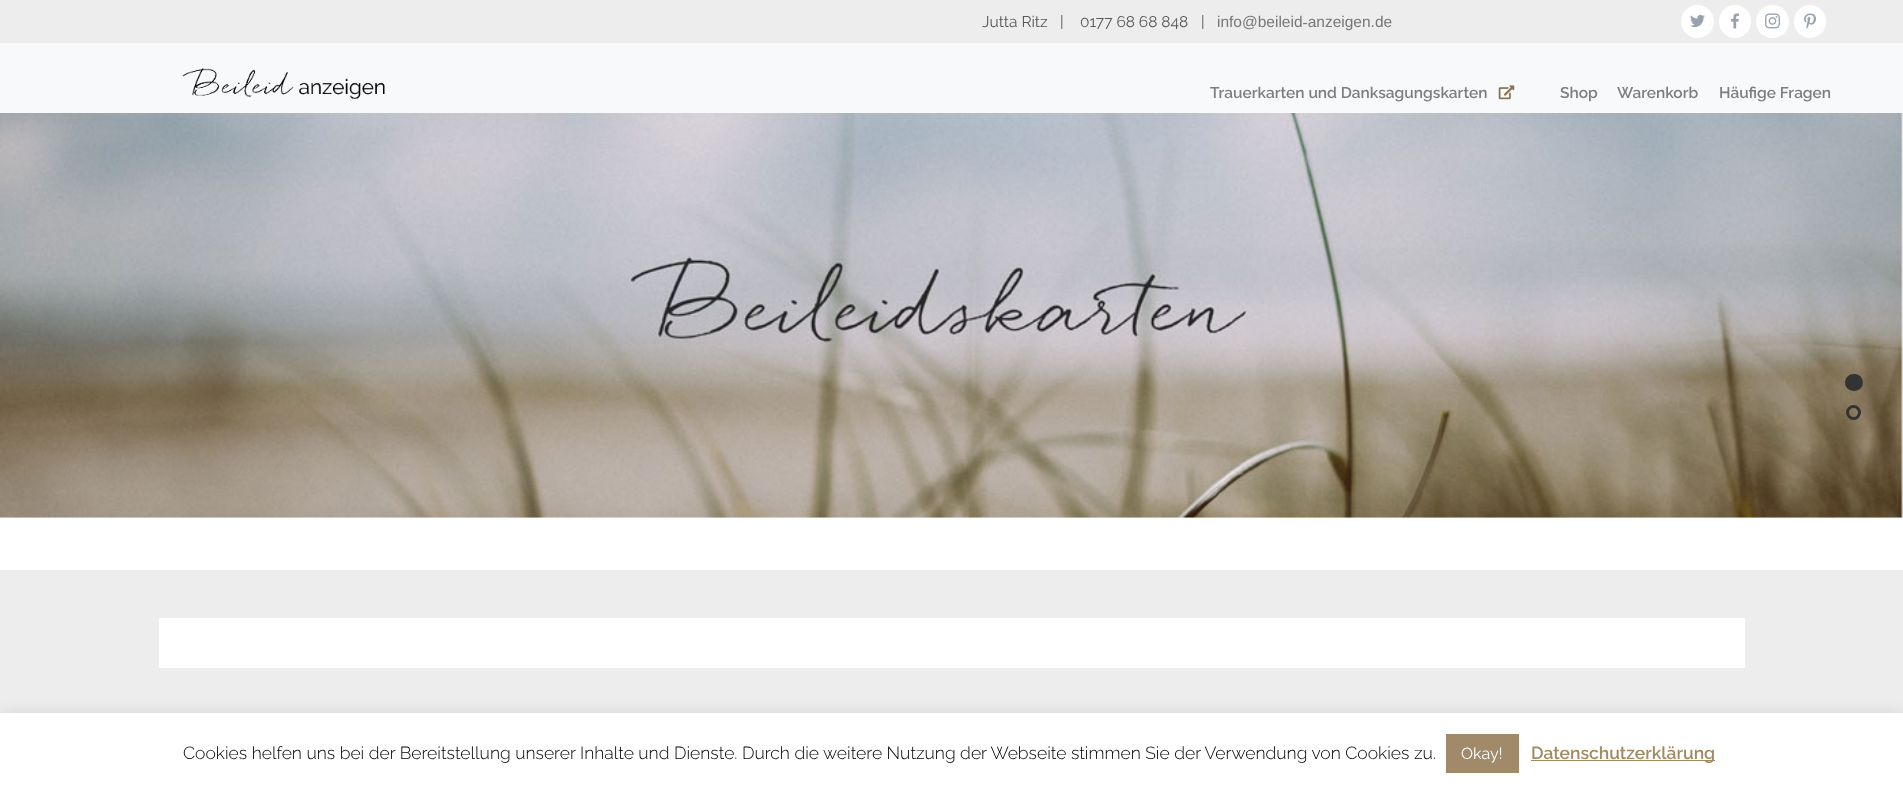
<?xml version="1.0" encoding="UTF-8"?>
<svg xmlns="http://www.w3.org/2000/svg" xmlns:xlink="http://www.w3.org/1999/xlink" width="1903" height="793">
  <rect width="100%" height="100%" fill="#ffffff" />
  <rect width="1903" height="43" fill="#ededed" />
  <circle cx="1697.5" cy="21.5" r="16.5" fill="#ffffff" />
  <image x="1690" y="14" width="15" height="13" xlink:href="image1.png" />
  <rect x="1719" y="5" width="32" height="33" rx="16" fill="#ffffff" />
  <image x="1731" y="13" width="8" height="16" xlink:href="image2.png" />
  <circle cx="1772.5" cy="21.5" r="16.5" fill="#ffffff" />
  <image x="1765" y="13" width="15" height="16" xlink:href="image3.png" />
  <rect x="1794" y="5" width="32" height="33" rx="16" fill="#ffffff" />
  <image x="1804" y="13" width="12" height="16" xlink:href="image4.png" />
  <rect y="43" width="1903" height="70" fill="#f8f9fa" />
  <image x="182" y="68" width="203" height="31" xlink:href="image5.png" />
  <image x="1498" y="85" width="17" height="15" xlink:href="image6.png" />
  <image x="0" y="113" width="1903" height="405" xlink:href="image7.png" />
  <rect y="570" width="1903" height="143" fill="#ededed" />
  <rect x="159" y="618" width="1586" height="50" fill="#ffffff" />
  <rect x="1845" y="374" width="18" height="17" rx="8.5" fill="#333333" />
  <circle cx="1853.5" cy="412.5" r="6" fill="none" stroke="#333333" stroke-width="3" />
  <rect y="711" width="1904" height="82" fill="#acabab" fill-opacity="0.3" filter="blur(6px)" />
  <rect y="713" width="1903" height="80" fill="#ffffff" />
  <rect x="1446" y="734" width="73" height="39" fill="#a18a6a" />
  <rect x="1531" y="760" width="184" height="1" fill="#a18a61" />
  <text x="982" y="27" style="font-family: Raleway; font-size: 15.5px; fill: #585858">Jutta Ritz</text>
  <text x="1060" y="27" style="font-family: Raleway; font-size: 15.5px; fill: #585858">|</text>
  <text x="1080" y="27" style="font-family: Raleway; font-size: 15.5px; fill: #585858">0177 68 68 848</text>
  <text x="1201" y="27" style="font-family: Raleway; font-size: 15.5px; fill: #585858">|</text>
  <text x="1217" y="27" style="font-family: Liberation Sans; font-size: 15.5px; fill: #777777">info@beileid‑anzeigen.de</text>
  <text x="1210" y="98" style="font-family: Raleway; font-size: 15.5px; font-weight: 600; fill: #7c7d7d">Trauerkarten und Danksagungskarten</text>
  <text x="1560" y="98" style="font-family: Raleway; font-size: 15.5px; font-weight: 600; fill: #7c7d7d">Shop</text>
  <text x="1617" y="98" style="font-family: Raleway; font-size: 15.5px; font-weight: 600; fill: #7c7d7d">Warenkorb</text>
  <text x="1719" y="98" style="font-family: Raleway; font-size: 15.5px; font-weight: 600; fill: #7c7d7d">Häufige Fragen</text>
  <text x="183" y="759" style="font-family: Raleway; font-size: 17.5px; font-weight: 300; fill: #000000">Cookies helfen uns bei der Bereitstellung unserer Inhalte und Dienste. Durch die weitere Nutzung der Webseite stimmen Sie der Verwendung von Cookies zu.</text>
  <text x="1461" y="759" style="font-family: Raleway; font-size: 16px; fill: #ffffff">Okay!</text>
  <text x="1531" y="759" style="font-family: Raleway; font-size: 17.5px; font-weight: 600; fill: #a18a61">Datenschutzerklärung</text>
</svg>
